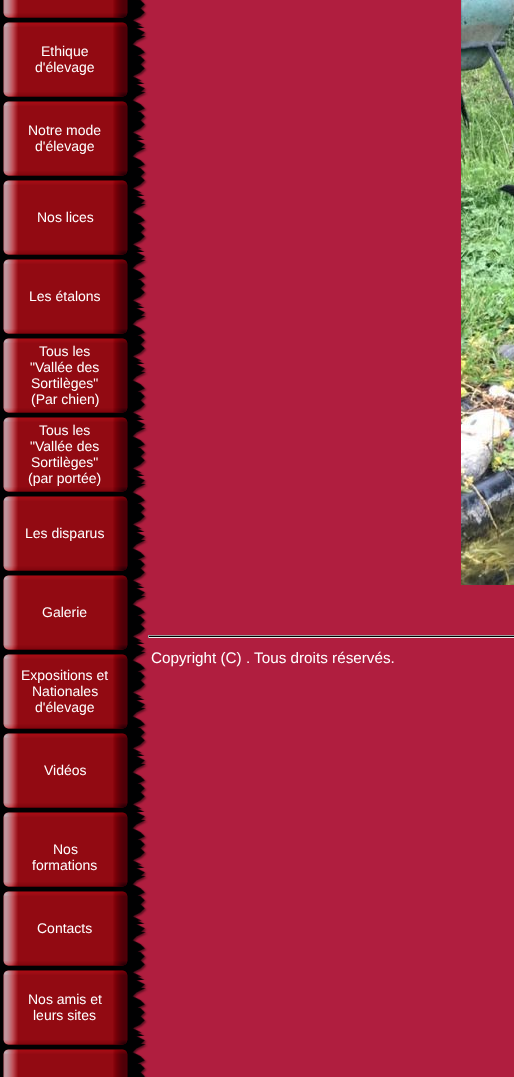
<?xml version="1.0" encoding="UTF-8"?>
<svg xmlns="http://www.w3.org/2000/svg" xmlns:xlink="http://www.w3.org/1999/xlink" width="514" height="1077">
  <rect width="100%" height="100%" fill="#b01e3f" />
  <rect x="0.5" y="-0.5" width="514" height="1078" fill="none" stroke="#010102" />
  <rect x="1" width="131" height="1077" fill="#010102" />
  <image x="3" y="0" width="125" height="18" xlink:href="image1.png" />
  <image x="3" y="22" width="125" height="75" xlink:href="image2.png" />
  <image x="3" y="101" width="125" height="75" xlink:href="image2.png" />
  <image x="3" y="180" width="125" height="75" xlink:href="image2.png" />
  <image x="3" y="259" width="125" height="75" xlink:href="image2.png" />
  <image x="3" y="338" width="125" height="75" xlink:href="image2.png" />
  <image x="3" y="417" width="125" height="75" xlink:href="image2.png" />
  <image x="3" y="496" width="125" height="75" xlink:href="image2.png" />
  <image x="3" y="575" width="125" height="75" xlink:href="image2.png" />
  <image x="3" y="654" width="125" height="75" xlink:href="image2.png" />
  <image x="3" y="733" width="125" height="75" xlink:href="image2.png" />
  <image x="3" y="812" width="125" height="75" xlink:href="image2.png" />
  <image x="3" y="891" width="125" height="75" xlink:href="image2.png" />
  <image x="3" y="970" width="125" height="75" xlink:href="image2.png" />
  <image x="3" y="1049" width="125" height="28" xlink:href="image3.png" />
  <image x="132" y="0" width="16" height="1077" xlink:href="image4.png" />
  <image x="461" y="0" width="53" height="585" xlink:href="image5.png" />
  <rect x="148" y="636" width="366" height="1" fill="#010102" />
  <rect x="148" y="635" width="366" height="1" fill="#9f9f9f" />
  <rect x="148" y="637" width="366" height="1" fill="#eeeeee" />
  <rect x="148" y="635" width="1" height="3" fill="#9f9f9f" />
  <text x="41" y="56" style="font-family: Liberation Sans; font-size: 14px; fill: #ffffff">Ethique</text>
  <text x="35" y="72" style="font-family: Liberation Sans; font-size: 14px; fill: #ffffff">d'élevage</text>
  <text x="28" y="135" style="font-family: Liberation Sans; font-size: 14px; fill: #ffffff">Notre mode</text>
  <text x="35" y="151" style="font-family: Liberation Sans; font-size: 14px; fill: #ffffff">d'élevage</text>
  <text x="37" y="222" style="font-family: Liberation Sans; font-size: 14px; fill: #ffffff">Nos lices</text>
  <text x="29" y="301" style="font-family: Liberation Sans; font-size: 14px; fill: #ffffff">Les étalons</text>
  <text x="39" y="356" style="font-family: Liberation Sans; font-size: 14px; fill: #ffffff">Tous les</text>
  <text x="30" y="372" style="font-family: Liberation Sans; font-size: 14px; fill: #ffffff">"Vallée des</text>
  <text x="31" y="388" style="font-family: Liberation Sans; font-size: 14px; fill: #ffffff">Sortilèges"</text>
  <text x="31" y="404" style="font-family: Liberation Sans; font-size: 14px; fill: #ffffff">(Par chien)</text>
  <text x="39" y="435" style="font-family: Liberation Sans; font-size: 14px; fill: #ffffff">Tous les</text>
  <text x="30" y="451" style="font-family: Liberation Sans; font-size: 14px; fill: #ffffff">"Vallée des</text>
  <text x="31" y="467" style="font-family: Liberation Sans; font-size: 14px; fill: #ffffff">Sortilèges"</text>
  <text x="28" y="483" style="font-family: Liberation Sans; font-size: 14px; fill: #ffffff">(par portée)</text>
  <text x="25" y="538" style="font-family: Liberation Sans; font-size: 14px; fill: #ffffff">Les disparus</text>
  <text x="42" y="617" style="font-family: Liberation Sans; font-size: 14px; fill: #ffffff">Galerie</text>
  <text x="21" y="680" style="font-family: Liberation Sans; font-size: 14px; fill: #ffffff">Expositions et</text>
  <text x="32" y="696" style="font-family: Liberation Sans; font-size: 14px; fill: #ffffff">Nationales</text>
  <text x="35" y="712" style="font-family: Liberation Sans; font-size: 14px; fill: #ffffff">d'élevage</text>
  <text x="44" y="775" style="font-family: Liberation Sans; font-size: 14px; fill: #ffffff">Vidéos</text>
  <text x="53" y="854" style="font-family: Liberation Sans; font-size: 14px; fill: #ffffff">Nos</text>
  <text x="32" y="870" style="font-family: Liberation Sans; font-size: 14px; fill: #ffffff">formations</text>
  <text x="37" y="933" style="font-family: Liberation Sans; font-size: 14px; fill: #ffffff">Contacts</text>
  <text x="28" y="1004" style="font-family: Liberation Sans; font-size: 14px; fill: #ffffff">Nos amis et</text>
  <text x="33" y="1020" style="font-family: Liberation Sans; font-size: 14px; fill: #ffffff">leurs sites</text>
  <text x="151" y="663" style="font-family: Liberation Sans; font-size: 15.25px; fill: #ffffff">Copyright (C) . Tous droits réservés.</text>
</svg>
